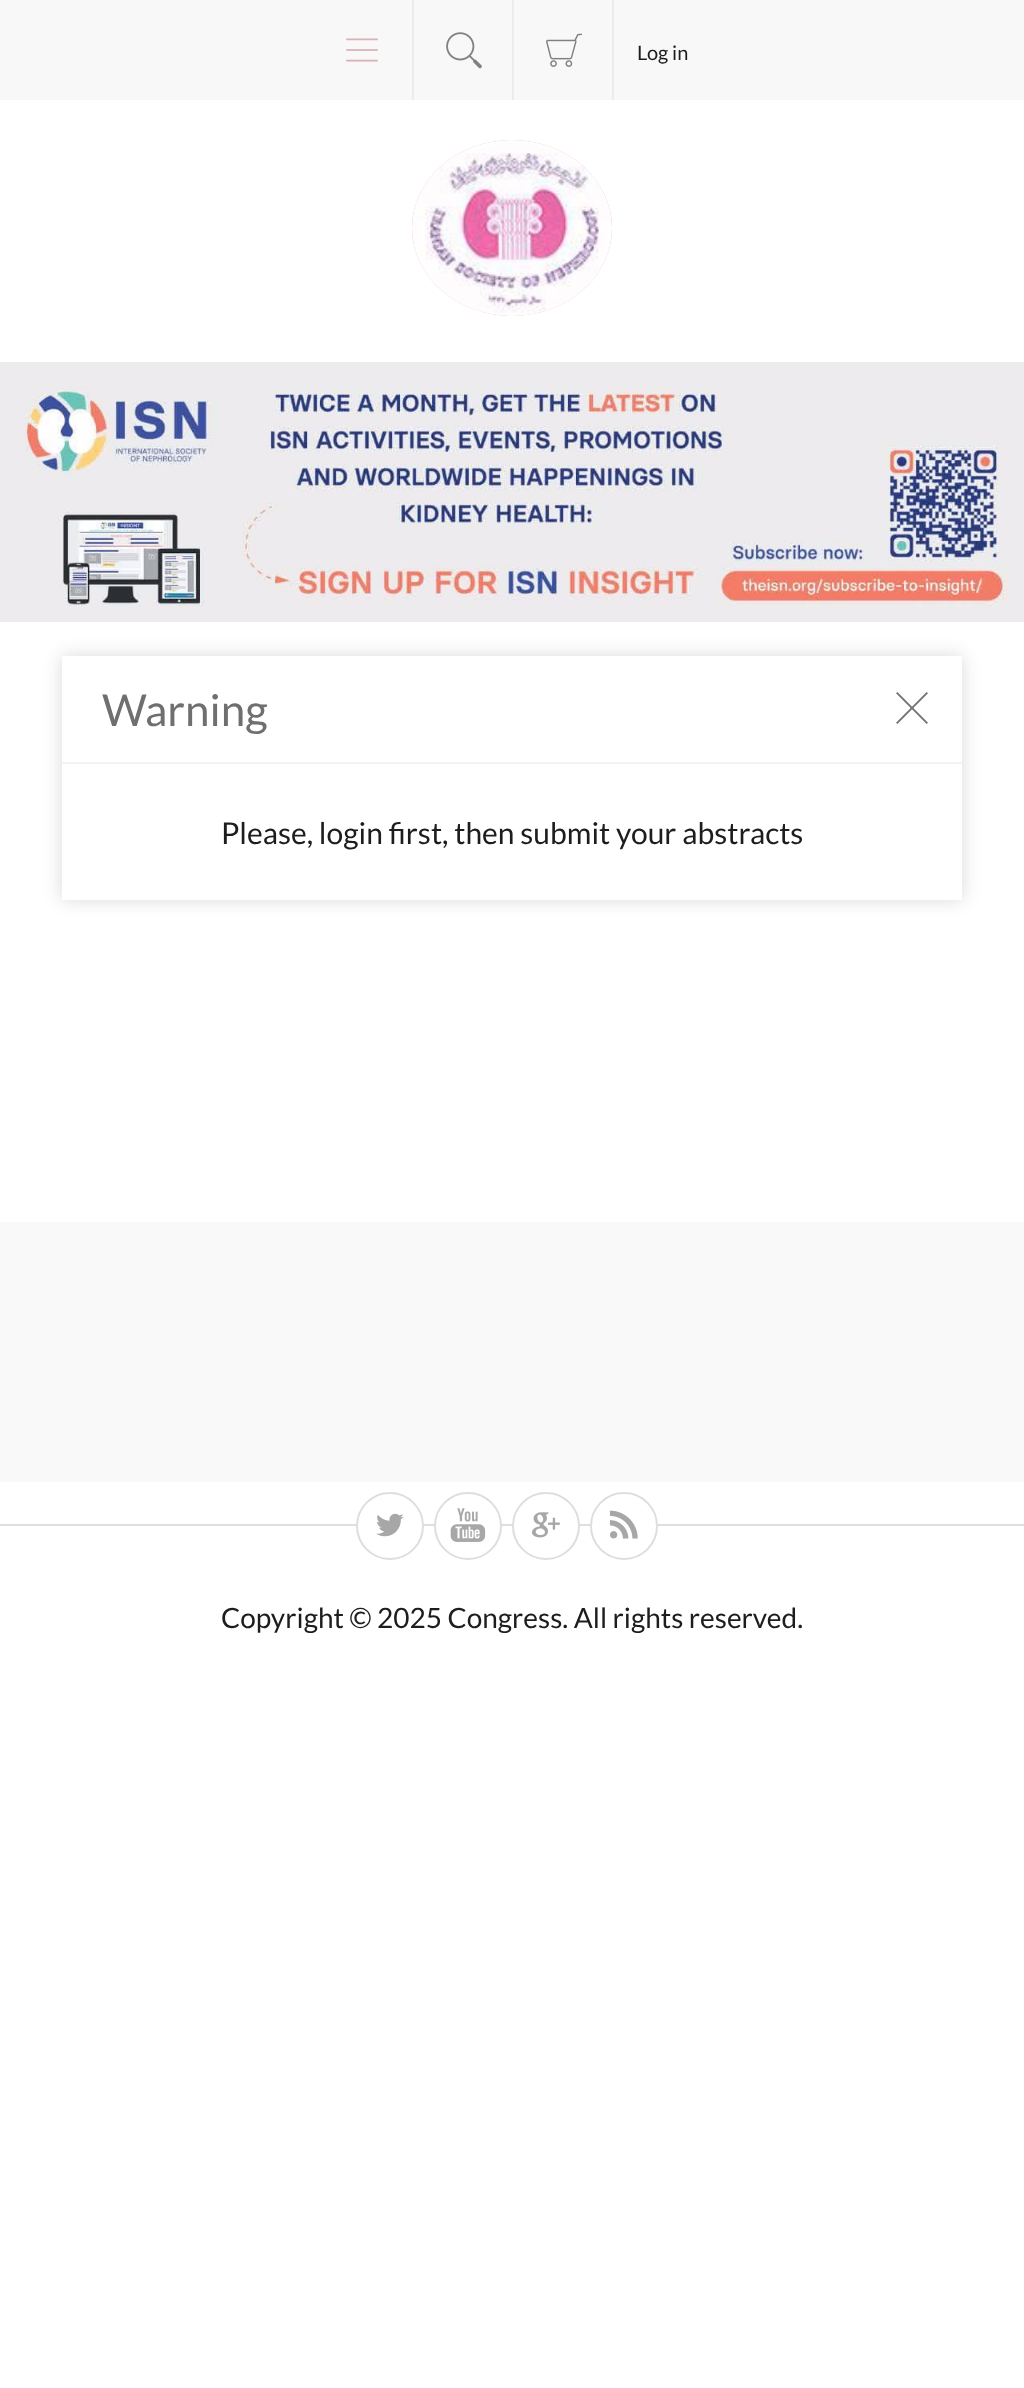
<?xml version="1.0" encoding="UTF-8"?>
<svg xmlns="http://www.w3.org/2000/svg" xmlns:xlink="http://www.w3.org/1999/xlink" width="1024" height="2388">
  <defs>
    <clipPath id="clip1"><path d="M 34 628 h 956 v 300 h -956 z m 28 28 h 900 v 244 h -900 z" clip-rule="evenodd" /></clipPath>
  </defs>
  <rect width="100%" height="100%" fill="#ffffff" />
  <rect width="1024" height="100" fill="#f8f8f8" />
  <image x="346" y="38" width="32" height="24" xlink:href="image1.png" />
  <rect x="412" width="2" height="100" fill="#ececec" />
  <image x="446" y="32" width="36" height="37" xlink:href="image2.png" />
  <rect x="512" width="2" height="100" fill="#ececec" />
  <image x="546" y="33" width="36" height="34" xlink:href="image3.png" />
  <rect x="612" width="2" height="100" fill="#ececec" />
  <ellipse cx="512" cy="228" rx="100" ry="88" fill="#dab1b5" />
  <image x="412" y="140" width="200" height="176" xlink:href="image4.png" />
  <image x="0" y="362" width="1024" height="260" xlink:href="image5.png" />
  <g clip-path="url(#clip1)">
    <rect x="62" y="656" width="900" height="244" fill="#000000" fill-opacity="0.15" filter="blur(9px)" />
  </g>
  <rect x="62" y="762" width="900" height="2" fill="#f3f3f3" />
  <image x="896" y="692" width="32" height="32" xlink:href="image6.png" />
  <rect y="1222" width="1024" height="260" fill="#f9f9f9" />
  <rect y="1524" width="1024" height="2" fill="#dedede" />
  <circle cx="390" cy="1526" r="33" fill="#ffffff" stroke="#dedede" stroke-width="2" />
  <image x="376" y="1513" width="28" height="24" xlink:href="image7.png" />
  <circle cx="468" cy="1526" r="33" fill="#ffffff" stroke="#dedede" stroke-width="2" />
  <image x="450" y="1508" width="36" height="34" xlink:href="image8.png" />
  <circle cx="546" cy="1526" r="33" fill="#ffffff" stroke="#dedede" stroke-width="2" />
  <image x="532" y="1512" width="28" height="26" xlink:href="image9.png" />
  <circle cx="624" cy="1526" r="33" fill="#ffffff" stroke="#dedede" stroke-width="2" />
  <image x="609" y="1510" width="29" height="29" xlink:href="image10.png" />
  <text x="637" y="60" style="font-family: Lato; font-size: 20px; fill: #1d1d1d">Log in</text>
  <text x="102" y="726" style="font-family: Lato; font-size: 44px; fill: #6f6f6f">Warning</text>
  <text x="221" y="844" style="font-family: Lato; font-size: 30px; fill: #1d1d1d">Please, login first, then submit your abstracts</text>
  <text x="221" y="1628" style="font-family: Lato; font-size: 28px; fill: #1d1d1d">Copyright © 2025 Congress. All rights reserved.</text>
</svg>
